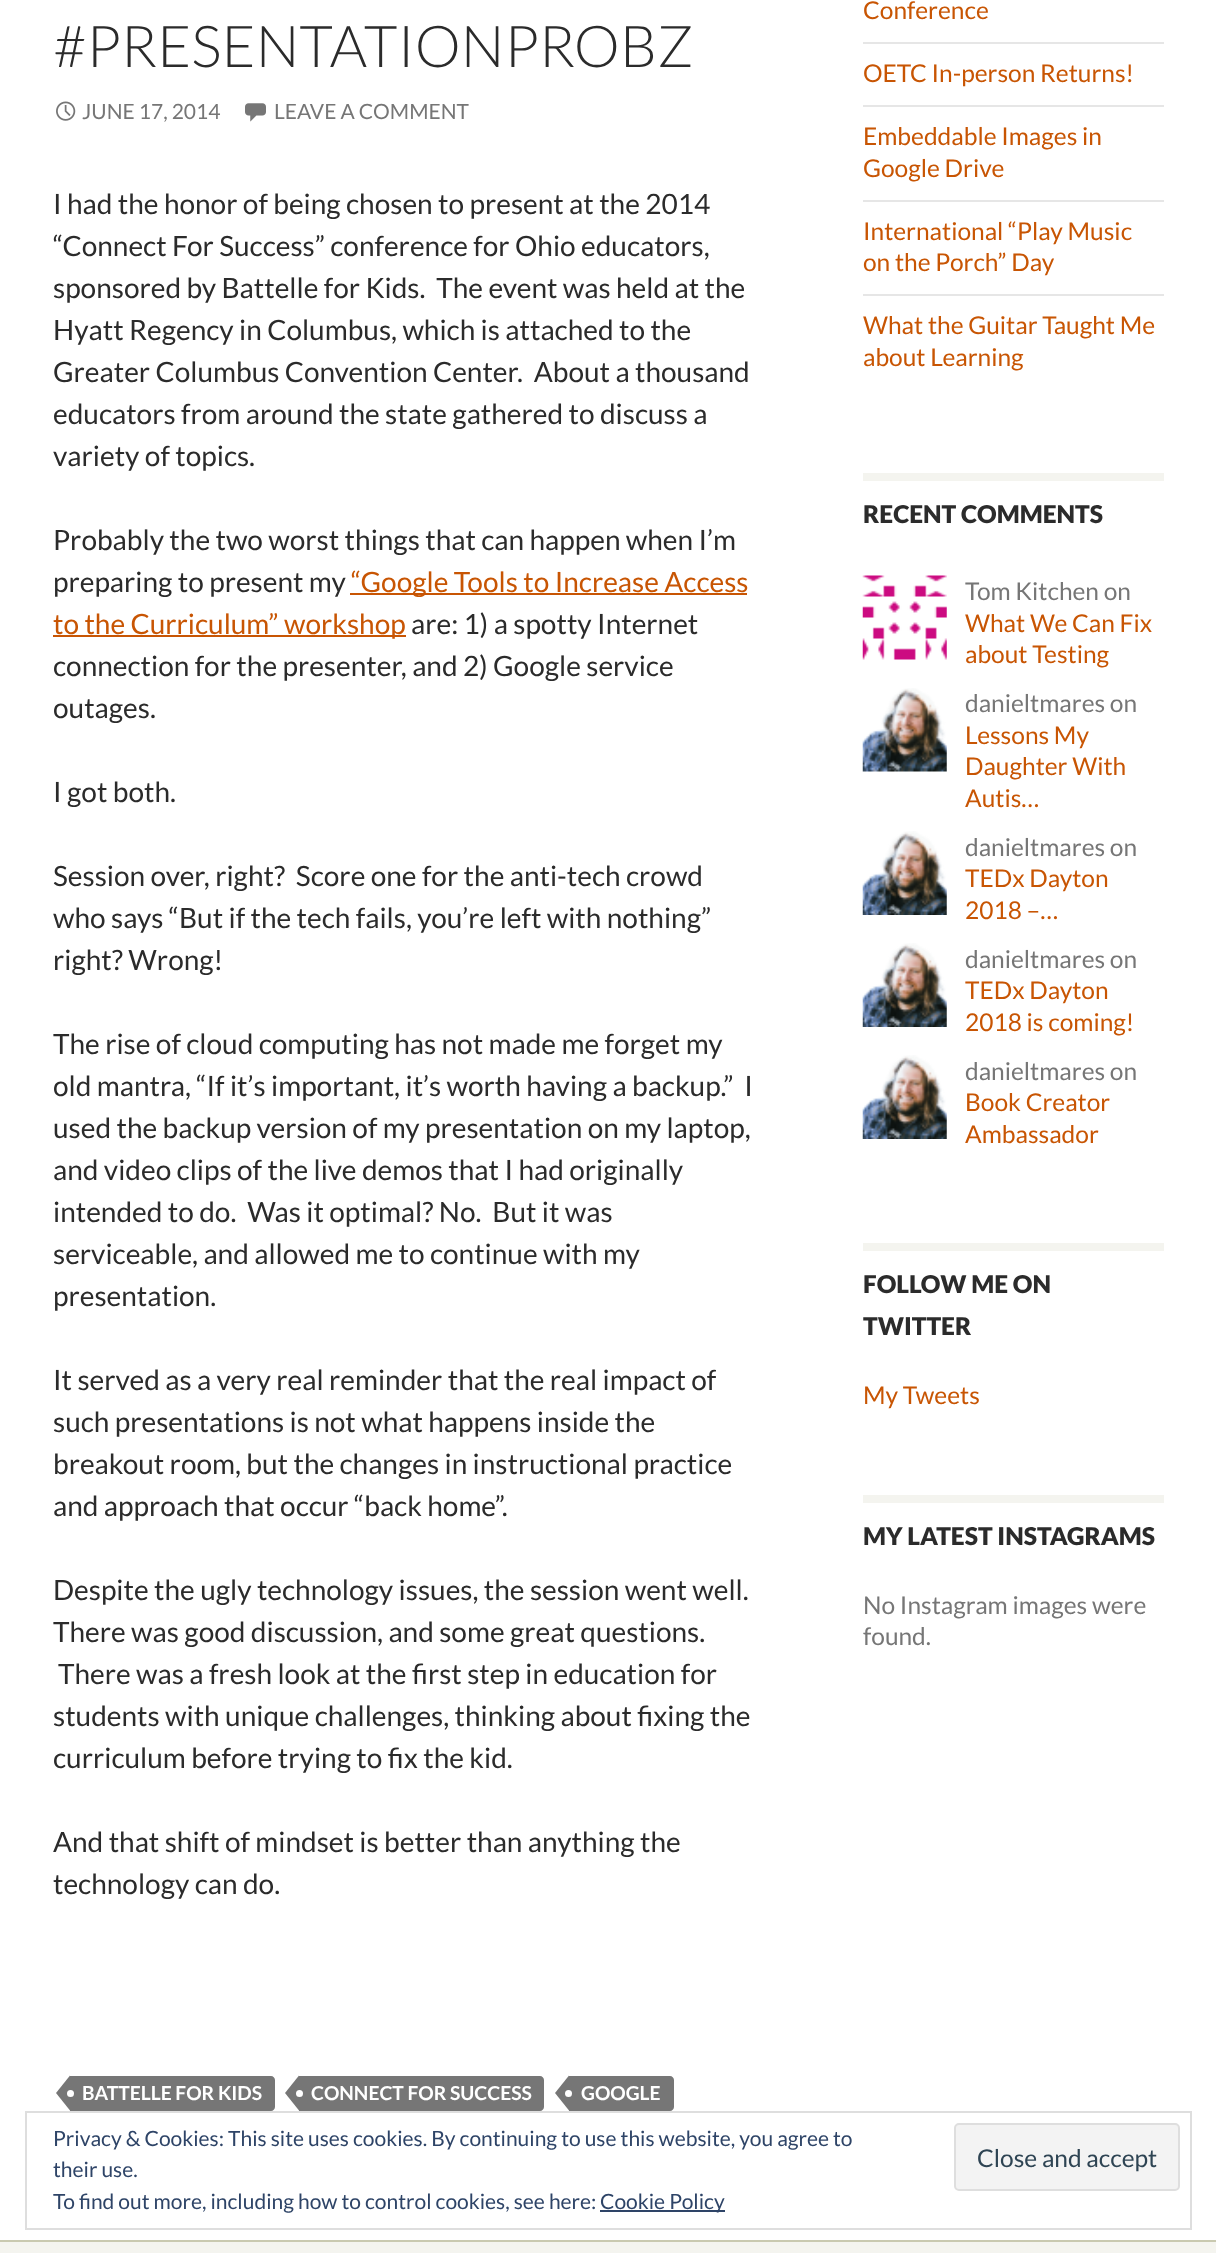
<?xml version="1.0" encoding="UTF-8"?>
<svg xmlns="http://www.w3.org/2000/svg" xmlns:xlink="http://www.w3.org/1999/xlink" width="1216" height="2253">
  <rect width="100%" height="100%" fill="#ffffff" />
  <image x="56" y="101" width="20" height="20" xlink:href="image1.png" />
  <image x="245" y="103" width="21" height="19" xlink:href="image2.png" />
  <rect x="350" y="593" width="397" height="2" fill="#c85503" />
  <rect x="53" y="635" width="353" height="2" fill="#c85503" />
  <path d="M 70 2076 h 201 c 2 0 4 2 4 4 v 27 c 0 2 -2 4 -4 4 h -201 z" fill="#767676" />
  <path d="M 70 2075.5 v 35 l -14 -17.5 z" fill="#767676" />
  <circle cx="70.5" cy="2093.5" r="3.5" fill="#ffffff" />
  <path d="M 299 2076 h 241 c 2 0 4 2 4 4 v 27 c 0 2 -2 4 -4 4 h -241 z" fill="#767676" />
  <path d="M 299 2075.5 v 35 l -14 -17.5 z" fill="#767676" />
  <circle cx="299.5" cy="2093.5" r="3.5" fill="#ffffff" />
  <path d="M 569 2076 h 101 c 2 0 4 2 4 4 v 27 c 0 2 -2 4 -4 4 h -101 z" fill="#767676" />
  <path d="M 569 2075.5 v 35 l -14 -17.5 z" fill="#767676" />
  <circle cx="568.5" cy="2093.5" r="3.5" fill="#ffffff" />
  <rect x="863" y="42" width="301" height="2" fill="#e6e6e6" />
  <rect x="863" y="105" width="301" height="2" fill="#e6e6e6" />
  <rect x="863" y="200" width="301" height="2" fill="#e6e6e6" />
  <rect x="863" y="294" width="301" height="2" fill="#e6e6e6" />
  <rect x="863" y="473" width="301" height="8" fill="#f4f4ef" />
  <image x="862" y="575" width="85" height="85" xlink:href="image3.png" />
  <image x="862" y="688" width="85" height="84" xlink:href="image4.png" />
  <image x="862" y="831" width="85" height="84" xlink:href="image5.png" />
  <image x="862" y="943" width="85" height="84" xlink:href="image5.png" />
  <image x="862" y="1055" width="85" height="84" xlink:href="image5.png" />
  <rect x="863" y="1243" width="301" height="8" fill="#f4f4ef" />
  <rect x="863" y="1495" width="301" height="8" fill="#f4f4ef" />
  <rect y="2242" width="1216" height="11" fill="#f4f4ef" />
  <rect y="2240" width="1216" height="2" fill="#c9c9b0" />
  <rect x="26" y="2112" width="1165" height="117" fill="none" stroke="#dedede" stroke-width="2" />
  <rect x="955" y="2124" width="224" height="66" rx="4" fill="#f3f3f3" stroke="#dedede" stroke-width="2" />
  <rect x="600" y="2210" width="125" height="2" fill="#2e4467" />
  <text x="53" y="67" style="font-family: Lato; font-size: 57.75px; font-weight: 300; fill: #2b2b2b">#PRESENTATIONPROBZ</text>
  <text x="82" y="119" style="font-family: Lato; font-size: 21px; fill: #767676">JUNE 17, 2014</text>
  <text x="274" y="119" style="font-family: Lato; font-size: 21px; fill: #767676">LEAVE A COMMENT</text>
  <text x="53" y="214" style="font-family: Lato; font-size: 28px; fill: #2b2b2b">I had the honor of being chosen to present at the 2014</text>
  <text x="53" y="256" style="font-family: Lato; font-size: 28px; fill: #2b2b2b">“Connect For Success” conference for Ohio educators,</text>
  <text x="53" y="298" style="font-family: Lato; font-size: 28px; fill: #2b2b2b" xml:space="preserve">sponsored by Battelle for Kids.  The event was held at the</text>
  <text x="53" y="340" style="font-family: Lato; font-size: 28px; fill: #2b2b2b">Hyatt Regency in Columbus, which is attached to the</text>
  <text x="53" y="382" style="font-family: Lato; font-size: 28px; fill: #2b2b2b" xml:space="preserve">Greater Columbus Convention Center.  About a thousand</text>
  <text x="53" y="424" style="font-family: Lato; font-size: 28px; fill: #2b2b2b">educators from around the state gathered to discuss a</text>
  <text x="53" y="466" style="font-family: Lato; font-size: 28px; fill: #2b2b2b">variety of topics.</text>
  <text x="53" y="550" style="font-family: Lato; font-size: 28px; fill: #2b2b2b">Probably the two worst things that can happen when I’m</text>
  <text x="53" y="592" style="font-family: Lato; font-size: 28px; fill: #2b2b2b">preparing to present my</text>
  <text x="351" y="592" style="font-family: Lato; font-size: 28px; fill: #c85503">“Google Tools to Increase Access</text>
  <text x="53" y="634" style="font-family: Lato; font-size: 28px; fill: #c85503">to the Curriculum” workshop</text>
  <text x="411" y="634" style="font-family: Lato; font-size: 28px; fill: #2b2b2b">are: 1) a spotty Internet</text>
  <text x="53" y="676" style="font-family: Lato; font-size: 28px; fill: #2b2b2b">connection for the presenter, and 2) Google service</text>
  <text x="53" y="718" style="font-family: Lato; font-size: 28px; fill: #2b2b2b">outages.</text>
  <text x="53" y="802" style="font-family: Lato; font-size: 28px; fill: #2b2b2b">I got both.</text>
  <text x="53" y="886" style="font-family: Lato; font-size: 28px; fill: #2b2b2b" xml:space="preserve">Session over, right?  Score one for the anti-tech crowd</text>
  <text x="53" y="928" style="font-family: Lato; font-size: 28px; fill: #2b2b2b">who says “But if the tech fails, you’re left with nothing”</text>
  <text x="53" y="970" style="font-family: Lato; font-size: 28px; fill: #2b2b2b">right? Wrong!</text>
  <text x="53" y="1054" style="font-family: Lato; font-size: 28px; fill: #2b2b2b">The rise of cloud computing has not made me forget my</text>
  <text x="53" y="1096" style="font-family: Lato; font-size: 28px; fill: #2b2b2b" xml:space="preserve">old mantra, “If it’s important, it’s worth having a backup.”  I</text>
  <text x="53" y="1138" style="font-family: Lato; font-size: 28px; fill: #2b2b2b">used the backup version of my presentation on my laptop,</text>
  <text x="53" y="1180" style="font-family: Lato; font-size: 28px; fill: #2b2b2b">and video clips of the live demos that I had originally</text>
  <text x="53" y="1222" style="font-family: Lato; font-size: 28px; fill: #2b2b2b" xml:space="preserve">intended to do.  Was it optimal? No.  But it was</text>
  <text x="53" y="1264" style="font-family: Lato; font-size: 28px; fill: #2b2b2b">serviceable, and allowed me to continue with my</text>
  <text x="53" y="1306" style="font-family: Lato; font-size: 28px; fill: #2b2b2b">presentation.</text>
  <text x="53" y="1390" style="font-family: Lato; font-size: 28px; fill: #2b2b2b">It served as a very real reminder that the real impact of</text>
  <text x="53" y="1432" style="font-family: Lato; font-size: 28px; fill: #2b2b2b">such presentations is not what happens inside the</text>
  <text x="53" y="1474" style="font-family: Lato; font-size: 28px; fill: #2b2b2b">breakout room, but the changes in instructional practice</text>
  <text x="53" y="1516" style="font-family: Lato; font-size: 28px; fill: #2b2b2b">and approach that occur “back home”.</text>
  <text x="53" y="1600" style="font-family: Lato; font-size: 28px; fill: #2b2b2b">Despite the ugly technology issues, the session went well.</text>
  <text x="53" y="1642" style="font-family: Lato; font-size: 28px; fill: #2b2b2b">There was good discussion, and some great questions.</text>
  <text x="58" y="1684" style="font-family: Lato; font-size: 28px; fill: #2b2b2b">There was a fresh look at the first step in education for</text>
  <text x="53" y="1726" style="font-family: Lato; font-size: 28px; fill: #2b2b2b">students with unique challenges, thinking about fixing the</text>
  <text x="53" y="1768" style="font-family: Lato; font-size: 28px; fill: #2b2b2b">curriculum before trying to fix the kid.</text>
  <text x="53" y="1852" style="font-family: Lato; font-size: 28px; fill: #2b2b2b">And that shift of mindset is better than anything the</text>
  <text x="53" y="1894" style="font-family: Lato; font-size: 28px; fill: #2b2b2b">technology can do.</text>
  <text x="82" y="2100" style="font-family: Lato; font-size: 19.25px; font-weight: bold; fill: #ffffff">BATTELLE FOR KIDS</text>
  <text x="311" y="2100" style="font-family: Lato; font-size: 19.25px; font-weight: bold; fill: #ffffff">CONNECT FOR SUCCESS</text>
  <text x="581" y="2100" style="font-family: Lato; font-size: 19.25px; font-weight: bold; fill: #ffffff">GOOGLE</text>
  <text x="863" y="19" style="font-family: Lato; font-size: 24.5px; fill: #c85503">Conference</text>
  <text x="863" y="82" style="font-family: Lato; font-size: 24.5px; fill: #c85503">OETC In-person Returns!</text>
  <text x="863" y="145" style="font-family: Lato; font-size: 24.5px; fill: #c85503">Embeddable Images in</text>
  <text x="863" y="177" style="font-family: Lato; font-size: 24.5px; fill: #c85503">Google Drive</text>
  <text x="863" y="240" style="font-family: Lato; font-size: 24.5px; fill: #c85503">International “Play Music</text>
  <text x="863" y="271" style="font-family: Lato; font-size: 24.5px; fill: #c85503">on the Porch” Day</text>
  <text x="863" y="334" style="font-family: Lato; font-size: 24.5px; fill: #c85503">What the Guitar Taught Me</text>
  <text x="863" y="366" style="font-family: Lato; font-size: 24.5px; fill: #c85503">about Learning</text>
  <text x="863" y="523" style="font-family: Lato; font-size: 24.5px; font-weight: 900; fill: #2b2b2b">RECENT COMMENTS</text>
  <text x="965" y="600" style="font-family: Lato; font-size: 24.5px; fill: #767676">Tom Kitchen on</text>
  <text x="965" y="632" style="font-family: Lato; font-size: 24.5px; fill: #c85503">What We Can Fix</text>
  <text x="965" y="663" style="font-family: Lato; font-size: 24.5px; fill: #c85503">about Testing</text>
  <text x="965" y="712" style="font-family: Lato; font-size: 24.5px; fill: #767676">danieltmares on</text>
  <text x="965" y="744" style="font-family: Lato; font-size: 24.5px; fill: #c85503">Lessons My</text>
  <text x="965" y="775" style="font-family: Lato; font-size: 24.5px; fill: #c85503">Daughter With</text>
  <text x="965" y="807" style="font-family: Lato; font-size: 24.5px; fill: #c85503">Autis…</text>
  <text x="965" y="856" style="font-family: Lato; font-size: 24.5px; fill: #767676">danieltmares on</text>
  <text x="965" y="887" style="font-family: Lato; font-size: 24.5px; fill: #c85503">TEDx Dayton</text>
  <text x="965" y="919" style="font-family: Lato; font-size: 24.5px; fill: #c85503">2018 –…</text>
  <text x="965" y="968" style="font-family: Lato; font-size: 24.5px; fill: #767676">danieltmares on</text>
  <text x="965" y="999" style="font-family: Lato; font-size: 24.5px; fill: #c85503">TEDx Dayton</text>
  <text x="965" y="1031" style="font-family: Lato; font-size: 24.5px; fill: #c85503">2018 is coming!</text>
  <text x="965" y="1080" style="font-family: Lato; font-size: 24.5px; fill: #767676">danieltmares on</text>
  <text x="965" y="1111" style="font-family: Lato; font-size: 24.5px; fill: #c85503">Book Creator</text>
  <text x="965" y="1143" style="font-family: Lato; font-size: 24.5px; fill: #c85503">Ambassador</text>
  <text x="863" y="1293" style="font-family: Lato; font-size: 24.5px; font-weight: 900; fill: #2b2b2b">FOLLOW ME ON</text>
  <text x="863" y="1335" style="font-family: Lato; font-size: 24.5px; font-weight: 900; fill: #2b2b2b">TWITTER</text>
  <text x="863" y="1404" style="font-family: Lato; font-size: 24.5px; fill: #c85503">My Tweets</text>
  <text x="863" y="1545" style="font-family: Lato; font-size: 24.5px; font-weight: 900; fill: #2b2b2b">MY LATEST INSTAGRAMS</text>
  <text x="863" y="1614" style="font-family: Lato; font-size: 24.5px; fill: #767676">No Instagram images were</text>
  <text x="863" y="1645" style="font-family: Lato; font-size: 24.5px; fill: #767676">found.</text>
  <text x="53" y="2146" style="font-family: Lato; font-size: 21px; fill: #2e4467">Privacy &amp; Cookies: This site uses cookies. By continuing to use this website, you agree to</text>
  <text x="53" y="2177" style="font-family: Lato; font-size: 21px; fill: #2e4467">their use.</text>
  <text x="977" y="2167" style="font-family: Lato; font-size: 24.5px; fill: #2e4453">Close and accept</text>
  <text x="53" y="2209" style="font-family: Lato; font-size: 21px; fill: #2e4467">To find out more, including how to control cookies, see here:</text>
  <text x="600" y="2209" style="font-family: Lato; font-size: 21px; fill: #2e4467">Cookie Policy</text>
</svg>
